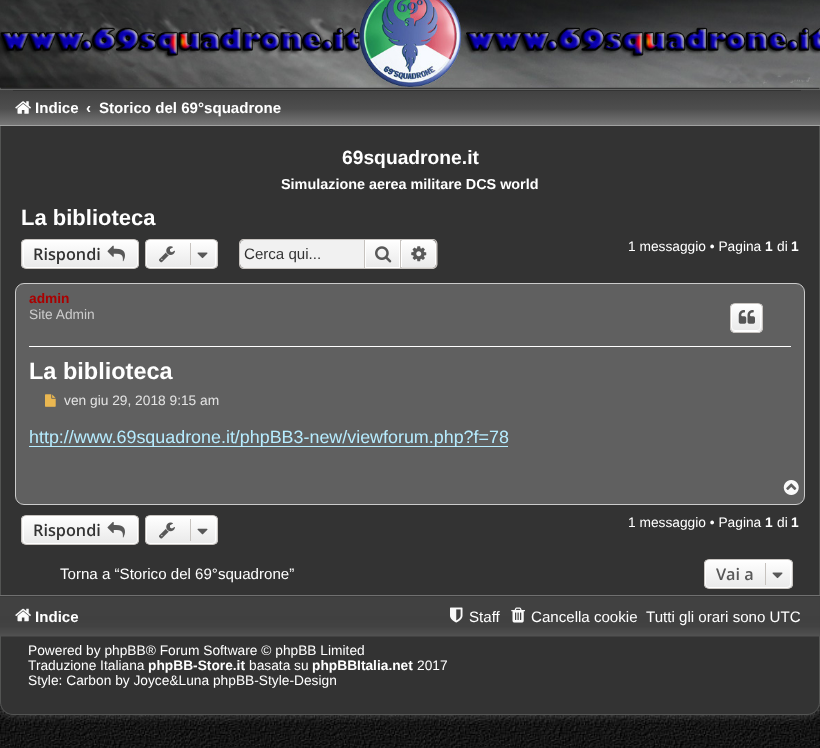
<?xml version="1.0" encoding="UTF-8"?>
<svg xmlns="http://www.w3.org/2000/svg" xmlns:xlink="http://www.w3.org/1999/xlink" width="820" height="748">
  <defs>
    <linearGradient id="g1" gradientUnits="userSpaceOnUse" x1="410" y1="90" x2="410" y2="144"><stop offset="0" stop-color="#414141" /><stop offset="0.35" stop-color="#4e4e4e" /><stop offset="0.76" stop-color="#878787" /><stop offset="1" stop-color="#fafafa" /></linearGradient>
    <clipPath id="clip1"><rect x="21" y="239" width="118" height="30" rx="5" /></clipPath>
    <linearGradient id="g2" gradientUnits="userSpaceOnUse" x1="80" y1="240" x2="80" y2="268"><stop offset="0" stop-color="#ffffff" /><stop offset="1" stop-color="#e9e9e9" /></linearGradient>
    <clipPath id="clip2"><rect x="145" y="239" width="73" height="30" rx="5" /></clipPath>
    <linearGradient id="g3" gradientUnits="userSpaceOnUse" x1="181" y1="240" x2="181" y2="268"><stop offset="0" stop-color="#ffffff" /><stop offset="1" stop-color="#e9e9e9" /></linearGradient>
    <linearGradient id="g4" gradientUnits="userSpaceOnUse" x1="383" y1="240" x2="383" y2="268"><stop offset="0" stop-color="#ffffff" /><stop offset="1" stop-color="#e9e9e9" /></linearGradient>
    <linearGradient id="g5" gradientUnits="userSpaceOnUse" x1="419" y1="240" x2="419" y2="268"><stop offset="0" stop-color="#ffffff" /><stop offset="1" stop-color="#e9e9e9" /></linearGradient>
    <clipPath id="clip3"><rect x="730" y="303" width="33" height="30" rx="5" /></clipPath>
    <linearGradient id="g6" gradientUnits="userSpaceOnUse" x1="746" y1="304" x2="746" y2="331"><stop offset="0" stop-color="#ffffff" /><stop offset="1" stop-color="#e9e9e9" /></linearGradient>
    <linearGradient id="g7" gradientUnits="userSpaceOnUse" x1="746" y1="331" x2="746" y2="359"><stop offset="0" stop-color="#ffffff" /><stop offset="1" stop-color="#e9e9e9" /></linearGradient>
    <clipPath id="clip4"><rect x="21" y="515" width="118" height="30" rx="5" /></clipPath>
    <linearGradient id="g8" gradientUnits="userSpaceOnUse" x1="80" y1="516" x2="80" y2="544"><stop offset="0" stop-color="#ffffff" /><stop offset="1" stop-color="#e9e9e9" /></linearGradient>
    <clipPath id="clip5"><rect x="145" y="515" width="73" height="30" rx="5" /></clipPath>
    <linearGradient id="g9" gradientUnits="userSpaceOnUse" x1="181" y1="516" x2="181" y2="544"><stop offset="0" stop-color="#ffffff" /><stop offset="1" stop-color="#e9e9e9" /></linearGradient>
    <clipPath id="clip6"><rect x="704" y="559" width="89" height="30" rx="5" /></clipPath>
    <linearGradient id="g10" gradientUnits="userSpaceOnUse" x1="748" y1="560" x2="748" y2="588"><stop offset="0" stop-color="#ffffff" /><stop offset="1" stop-color="#e9e9e9" /></linearGradient>
  </defs>
  <rect width="100%" height="100%" fill="#ffffff" />
  <image x="0" y="702" width="820" height="46" xlink:href="image1.png" />
  <rect x="-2" y="-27" width="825" height="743" rx="15" fill="#ffffff" fill-opacity="0.2" filter="blur(4px)" />
  <path d="M 0.5 -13.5 h 819 v 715.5 c 0 7 -5.5 12.5 -12.5 12.5 h -794 c -7 0 -12.5 -5.5 -12.5 -12.5 z" fill="#333333" stroke="#535453" />
  <image x="0" y="0" width="820" height="88" xlink:href="image2.png" />
  <rect y="90" width="820" height="35" fill="url(#g1)" />
  <rect y="89" width="820" height="1" fill="#666766" />
  <rect y="125" width="820" height="1" fill="#a1a2a1" />
  <rect x="13" y="90" width="788" height="1" fill="#333333" />
  <image x="15" y="101" width="16" height="13" xlink:href="image3.png" />
  <g clip-path="url(#clip1)">
    <rect x="21" y="240" width="118" height="28" fill="url(#g2)" />
  </g>
  <rect x="23.5" y="240.5" width="114" height="27" rx="3.5" fill="none" stroke="#ffffff" />
  <rect x="21.5" y="239.5" width="117" height="29" rx="4.5" fill="none" stroke="#c7c3bf" />
  <image x="107" y="245" width="18" height="17" xlink:href="image4.png" />
  <g clip-path="url(#clip2)">
    <rect x="145" y="240" width="73" height="28" fill="url(#g3)" />
  </g>
  <rect x="146.5" y="240.5" width="69" height="27" rx="3.5" fill="none" stroke="#ffffff" />
  <rect x="145.5" y="239.5" width="72" height="29" rx="4.5" fill="none" stroke="#c7c3bf" />
  <image x="159" y="246" width="16" height="17" xlink:href="image5.png" />
  <rect x="190" y="243" width="1" height="22" fill="#c7c3bf" />
  <image x="197" y="252" width="11" height="7" xlink:href="image6.png" />
  <path d="M 244 240 h 120 v 28 h -120 c -2 0 -4 -2 -4 -4 v -20 c 0 -2 2 -4 4 -4 z" fill="#f1f1f1" />
  <path d="M 244 239 h 120 v 30 h -120 c -3 0 -5 -2 -5 -5 v -20 c 0 -3 2 -5 5 -5 z m 0 1 h 120 v 28 h -120 c -2 0 -4 -2 -4 -4 v -20 c 0 -2 2 -4 4 -4 z" fill="#c7c3bf" fill-rule="evenodd" />
  <rect x="366" y="241" width="33" height="26" fill="url(#g4)" />
  <rect x="365.5" y="240.5" width="34" height="27" fill="none" stroke="#ffffff" />
  <rect x="364.5" y="239.5" width="36" height="29" fill="none" stroke="#c7c3bf" />
  <image x="375" y="246" width="17" height="17" xlink:href="image7.png" />
  <path d="M 401.5 240.5 h 30.5 c 2 0 3.5 1.5 3.5 3.5 v 20 c 0 2 -1.5 3.5 -3.5 3.5 h -30.5 z" fill="url(#g5)" stroke="#ffffff" />
  <path d="M 401 239 h 31.5 c 3 0 5 2 5 5 v 20 c 0 2.5 -2 5 -5 5 h -31.5 z m 0 1 h 31.5 c 2 0 3.5 1.5 3.5 4 v 20 c 0 2 -1.5 3.5 -3.5 3.5 h -31.5 z" fill="#c7c3bf" fill-rule="evenodd" />
  <image x="411" y="246" width="16" height="16" xlink:href="image8.png" />
  <rect x="15.5" y="283.5" width="789" height="221" rx="8.5" fill="#606060" stroke="#cccccc" />
  <rect x="29" y="346" width="762" height="1" fill="#ffffff" />
  <g clip-path="url(#clip3)">
    <rect x="730" y="304" width="33" height="27" fill="url(#g6)" />
    <rect x="730" y="331" width="33" height="2" fill="url(#g7)" />
  </g>
  <rect x="731.5" y="304.5" width="29" height="26" rx="3.5" fill="none" stroke="#ffffff" />
  <rect x="730.5" y="303.5" width="32" height="29" rx="4.5" fill="none" stroke="#c7c3bf" />
  <image x="738" y="310" width="17" height="14" xlink:href="image9.png" />
  <image x="45" y="394" width="11" height="13" xlink:href="image10.png" />
  <rect x="29" y="446" width="479" height="1" fill="#b6ecff" />
  <image x="783" y="480" width="16" height="15" xlink:href="image11.png" />
  <g clip-path="url(#clip4)">
    <rect x="21" y="516" width="118" height="28" fill="url(#g8)" />
  </g>
  <rect x="23.5" y="516.5" width="114" height="27" rx="3.5" fill="none" stroke="#ffffff" />
  <rect x="21.5" y="515.5" width="117" height="29" rx="4.5" fill="none" stroke="#c7c3bf" />
  <image x="107" y="521" width="18" height="17" xlink:href="image12.png" />
  <g clip-path="url(#clip5)">
    <rect x="145" y="516" width="73" height="28" fill="url(#g9)" />
  </g>
  <rect x="146.5" y="516.5" width="69" height="27" rx="3.5" fill="none" stroke="#ffffff" />
  <rect x="145.5" y="515.5" width="72" height="29" rx="4.5" fill="none" stroke="#c7c3bf" />
  <image x="159" y="522" width="16" height="17" xlink:href="image13.png" />
  <rect x="190" y="519" width="1" height="22" fill="#c7c3bf" />
  <image x="197" y="528" width="11" height="7" xlink:href="image14.png" />
  <g clip-path="url(#clip6)">
    <rect x="704" y="560" width="89" height="28" fill="url(#g10)" />
  </g>
  <rect x="705.5" y="560.5" width="85" height="27" rx="3.5" fill="none" stroke="#ffffff" />
  <rect x="704.5" y="559.5" width="88" height="29" rx="4.5" fill="none" stroke="#c7c3bf" />
  <rect x="765" y="563" width="1" height="22" fill="#c7c3bf" />
  <image x="772" y="572" width="11" height="7" xlink:href="image6.png" />
  <image x="0" y="596" width="820" height="41" xlink:href="image15.png" />
  <rect y="595" width="820" height="1" fill="#707070" />
  <image x="15" y="608" width="16" height="14" xlink:href="image16.png" />
  <image x="450" y="607" width="13" height="16" xlink:href="image17.png" />
  <image x="511" y="607" width="14" height="16" xlink:href="image18.png" />
  <text x="35" y="113" style="font-family: Liberation Sans; font-size: 15.1px; font-weight: bold; fill: #ffffff">Indice</text>
  <text x="86" y="113" style="font-family: Liberation Sans; font-size: 15.1px; font-weight: bold; fill: #ffffff">‹</text>
  <text x="99" y="113" style="font-family: Liberation Sans; font-size: 15.1px; font-weight: bold; fill: #ffffff">Storico del 69°squadrone</text>
  <text x="342" y="164" style="font-family: Liberation Sans; font-size: 19.25px; font-weight: bold; fill: #ffffff">69squadrone.it</text>
  <text x="281" y="189" style="font-family: Liberation Sans; font-size: 14.4px; font-weight: bold; fill: #ffffff">Simulazione aerea militare DCS world</text>
  <text x="21" y="225" style="font-family: Liberation Sans; font-size: 22px; font-weight: bold; fill: #ffffff">La biblioteca</text>
  <text x="33" y="260" style="font-family: Open Sans; font-size: 16.25px; font-weight: 600; fill: #333333">Rispondi</text>
  <text x="244" y="259" style="font-family: Liberation Sans; font-size: 15.1px; fill: #333333">Cerca qui...</text>
  <text x="628" y="251" style="font-family: Liberation Sans; font-size: 13.75px; fill: #ffffff">1 messaggio • Pagina</text>
  <text x="765" y="251" style="font-family: Liberation Sans; font-size: 13.75px; font-weight: bold; fill: #ffffff">1</text>
  <text x="777" y="251" style="font-family: Liberation Sans; font-size: 13.75px; fill: #ffffff">di</text>
  <text x="791" y="251" style="font-family: Liberation Sans; font-size: 13.75px; font-weight: bold; fill: #ffffff">1</text>
  <text x="29" y="303" style="font-family: Liberation Sans; font-size: 13.75px; font-weight: bold; fill: #aa0000">admin</text>
  <text x="29" y="319" style="font-family: Liberation Sans; font-size: 13.75px; fill: #cccccc">Site Admin</text>
  <text x="29" y="379" style="font-family: Liberation Sans; font-size: 23.5px; font-weight: bold; fill: #ffffff">La biblioteca</text>
  <text x="64" y="405" style="font-family: Liberation Sans; font-size: 13.75px; fill: #e3e3e3">ven giu 29, 2018 9:15 am</text>
  <text x="29" y="443" style="font-family: Liberation Sans; font-size: 17.9px; fill: #b6ecff">http://www.69squadrone.it/phpBB3-new/viewforum.php?f=78</text>
  <text x="33" y="536" style="font-family: Open Sans; font-size: 16.25px; font-weight: 600; fill: #333333">Rispondi</text>
  <text x="628" y="527" style="font-family: Liberation Sans; font-size: 13.75px; fill: #ffffff">1 messaggio • Pagina</text>
  <text x="765" y="527" style="font-family: Liberation Sans; font-size: 13.75px; font-weight: bold; fill: #ffffff">1</text>
  <text x="777" y="527" style="font-family: Liberation Sans; font-size: 13.75px; fill: #ffffff">di</text>
  <text x="791" y="527" style="font-family: Liberation Sans; font-size: 13.75px; font-weight: bold; fill: #ffffff">1</text>
  <text x="60" y="579" style="font-family: Liberation Sans; font-size: 15.1px; fill: #ffffff">Torna a “Storico del 69°squadrone”</text>
  <text x="716" y="580" style="font-family: Open Sans; font-size: 16.25px; font-weight: 600; fill: #585858">Vai a</text>
  <text x="35" y="622" style="font-family: Liberation Sans; font-size: 15.1px; font-weight: bold; fill: #ffffff">Indice</text>
  <text x="469" y="622" style="font-family: Liberation Sans; font-size: 15.1px; fill: #ffffff">Staff</text>
  <text x="531" y="622" style="font-family: Liberation Sans; font-size: 15.1px; fill: #ffffff">Cancella cookie</text>
  <text x="646" y="622" style="font-family: Liberation Sans; font-size: 15.1px; fill: #ffffff">Tutti gli orari sono UTC</text>
  <text x="28" y="655" style="font-family: Liberation Sans; font-size: 13.75px; fill: #ffffff">Powered by phpBB® Forum Software © phpBB Limited</text>
  <text x="28" y="670" style="font-family: Liberation Sans; font-size: 13.75px; fill: #ffffff">Traduzione Italiana</text>
  <text x="148" y="670" style="font-family: Liberation Sans; font-size: 13.75px; font-weight: bold; fill: #ffffff">phpBB-Store.it</text>
  <text x="249" y="670" style="font-family: Liberation Sans; font-size: 13.75px; fill: #ffffff">basata su</text>
  <text x="312" y="670" style="font-family: Liberation Sans; font-size: 13.75px; font-weight: bold; fill: #ffffff">phpBBItalia.net</text>
  <text x="417" y="670" style="font-family: Liberation Sans; font-size: 13.75px; fill: #ffffff">2017</text>
  <text x="28" y="685" style="font-family: Liberation Sans; font-size: 13.75px; fill: #ffffff">Style: Carbon by Joyce&amp;Luna phpBB-Style-Design</text>
</svg>
